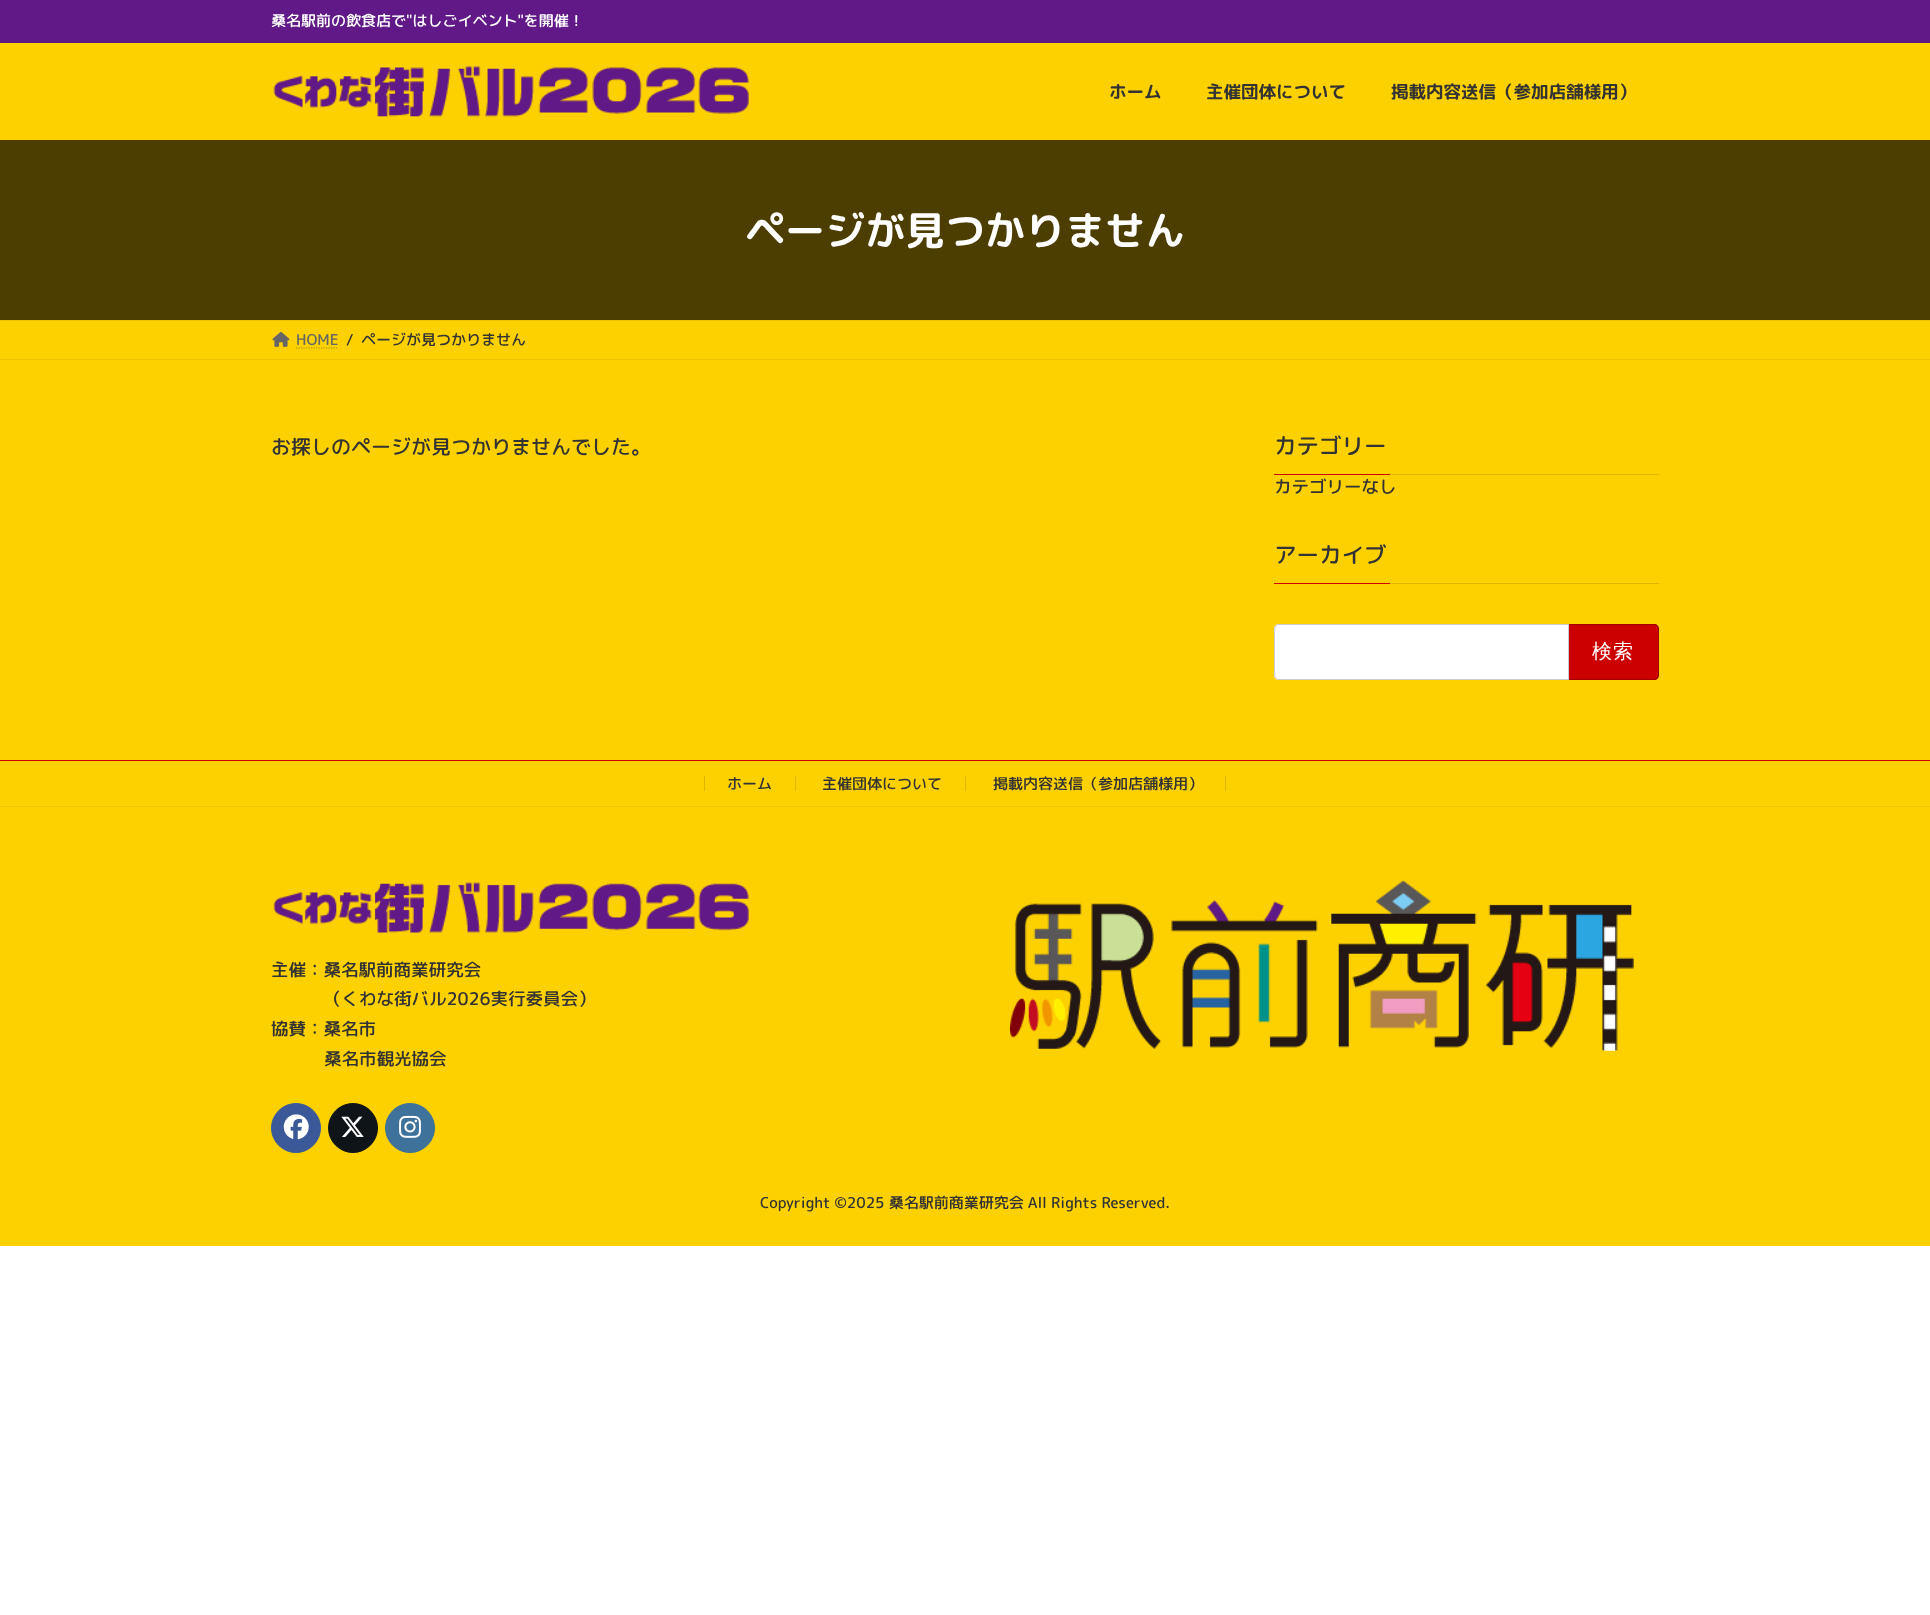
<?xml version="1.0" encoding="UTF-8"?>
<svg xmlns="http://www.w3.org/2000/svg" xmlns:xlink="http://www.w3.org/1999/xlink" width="1930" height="1615">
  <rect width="100%" height="100%" fill="#ffffff" />
  <rect y="43" width="1930" height="1203" fill="#fdd000" />
  <rect width="1930" height="43" fill="#601986" />
  <rect y="41" width="1930" height="1" fill="#5c1881" />
  <image x="273" y="66" width="476" height="51" xlink:href="image1.png" />
  <rect y="140" width="1930" height="180" fill="#4c3e00" />
  <rect y="320" width="1930" height="1" fill="#eec400" />
  <rect y="359" width="1930" height="1" fill="#eec400" />
  <image x="272" y="331" width="18" height="16" xlink:href="image2.png" />
  <path d="M 296 348 h 42.5" fill="none" stroke="#b19200" stroke-width="1.2" stroke-dasharray="1.25 1.25" />
  <rect x="1390" y="474" width="269" height="1" fill="#dfb700" />
  <rect x="1274" y="474" width="116" height="1" fill="#cc0000" />
  <rect x="1390" y="583" width="269" height="1" fill="#dfb700" />
  <rect x="1274" y="583" width="116" height="1" fill="#cc0000" />
  <path d="M 1279 624 h 290 v 56 h -290 c -3 0 -5 -2 -5 -5 v -46 c 0 -3 2 -5 5 -5 z" fill="#ffffff" />
  <path d="M 1279 624.5 h 289.5 v 55 h -289.5 c -2.5 0 -4.5 -2 -4.5 -4.5 v -46 c 0 -2.5 2 -4.5 4.5 -4.5 z" fill="none" stroke="#000000" stroke-opacity="0.2" />
  <path d="M 1569 624 h 85 c 3 0 5 2 5 5 v 46 c 0 3 -2 5 -5 5 h -85 z" fill="#cc0000" />
  <path d="M 1569 624 h 85 c 3 0 5 2 5 5 v 46 c 0 3 -2 5 -5 5 h -85 z m 0 1 h 85 c 2 0 4 2 4 4 v 46 c 0 2 -2 4 -4 4 h -85 z" fill="#000000" fill-opacity="0.2" fill-rule="evenodd" />
  <rect y="760" width="1930" height="1" fill="#cc0000" />
  <rect y="806" width="1930" height="1" fill="#eec400" />
  <rect x="795" y="776" width="1" height="15" fill="#dfb700" />
  <rect x="704" y="776" width="1" height="15" fill="#dfb700" />
  <rect x="965" y="776" width="1" height="15" fill="#dfb700" />
  <rect x="1225" y="776" width="1" height="15" fill="#dfb700" />
  <image x="273" y="882" width="476" height="51" xlink:href="image3.png" />
  <circle cx="296" cy="1128" r="24.5" fill="#3b5998" stroke="#3b5998" />
  <image x="283" y="1114" width="26" height="26" xlink:href="image4.png" />
  <circle cx="353" cy="1128" r="24.5" fill="#0f1419" stroke="#0f1419" />
  <image x="341" y="1116" width="23" height="21" xlink:href="image5.png" />
  <circle cx="410" cy="1128" r="24.5" fill="#3f729b" stroke="#3f729b" />
  <image x="399" y="1115" width="22" height="23" xlink:href="image6.png" />
  <image x="1010" y="880" width="624" height="172" xlink:href="image7.png" />
  <text x="271" y="26" style="font-family: 'Rounded Mplus 1c'; font-size: 15px; font-weight: 500; fill: #ffffff">桑名駅前の飲食店で"はしごイベント"を開催！</text>
  <text x="1109" y="98" style="font-family: 'Rounded Mplus 1c Bold'; font-size: 17.5px; font-weight: bold; fill: #333333">ホーム</text>
  <text x="1206" y="98" style="font-family: 'Rounded Mplus 1c Bold'; font-size: 17.5px; font-weight: bold; fill: #333333">主催団体について</text>
  <text x="1391" y="98" style="font-family: 'Rounded Mplus 1c Bold'; font-size: 17.5px; font-weight: bold; fill: #333333">掲載内容送信（参加店舗様用）</text>
  <text x="745" y="245" style="font-family: 'Rounded Mplus 1c Bold'; font-size: 40px; font-weight: bold; fill: #ffffff">ページが見つかりません</text>
  <text x="296" y="345" style="font-family: 'Rounded Mplus 1c'; font-size: 15px; font-weight: 500; fill: #666666">HOME</text>
  <text x="346" y="345" style="font-family: 'Rounded Mplus 1c'; font-size: 15px; font-weight: 500; fill: #333333">/</text>
  <text x="361" y="345" style="font-family: 'Rounded Mplus 1c'; font-size: 15px; font-weight: 500; fill: #333333">ページが見つかりません</text>
  <text x="271" y="454" style="font-family: 'Rounded Mplus 1c'; font-size: 20px; font-weight: 500; fill: #333333">お探しのページが見つかりませんでした。</text>
  <text x="1274" y="454" style="font-family: 'Rounded Mplus 1c'; font-size: 22.5px; font-weight: 500; fill: #333333">カテゴリー</text>
  <text x="1274" y="493" style="font-family: 'Rounded Mplus 1c'; font-size: 17.5px; font-weight: 500; fill: #333333">カテゴリーなし</text>
  <text x="1274" y="563" style="font-family: 'Rounded Mplus 1c'; font-size: 22.5px; font-weight: 500; fill: #333333">アーカイブ</text>
  <text x="1592" y="658" style="font-family: WenQuanYi Zen Hei; font-size: 20px; font-weight: 500; letter-spacing: 1px; fill: #ffffff">検索</text>
  <text x="727" y="789" style="font-family: 'Rounded Mplus 1c'; font-size: 15px; font-weight: 500; fill: #333333">ホーム</text>
  <text x="822" y="789" style="font-family: 'Rounded Mplus 1c'; font-size: 15px; font-weight: 500; fill: #333333">主催団体について</text>
  <text x="993" y="789" style="font-family: 'Rounded Mplus 1c'; font-size: 15px; font-weight: 500; fill: #333333">掲載内容送信（参加店舗様用）</text>
  <text x="271" y="976" style="font-family: 'Rounded Mplus 1c'; font-size: 17.5px; font-weight: 500; fill: #333333">主催：桑名駅前商業研究会</text>
  <text x="324" y="1005" style="font-family: 'Rounded Mplus 1c'; font-size: 17.5px; font-weight: 500; fill: #333333">（くわな街バル2026実行委員会）</text>
  <text x="271" y="1035" style="font-family: 'Rounded Mplus 1c'; font-size: 17.5px; font-weight: 500; fill: #333333">協賛：桑名市</text>
  <text x="324" y="1065" style="font-family: 'Rounded Mplus 1c'; font-size: 17.5px; font-weight: 500; fill: #333333">桑名市観光協会</text>
  <text x="760" y="1208" style="font-family: 'Rounded Mplus 1c'; font-size: 15px; font-weight: 500; fill: #333333">Copyright ©2025 桑名駅前商業研究会 All Rights Reserved.</text>
</svg>
